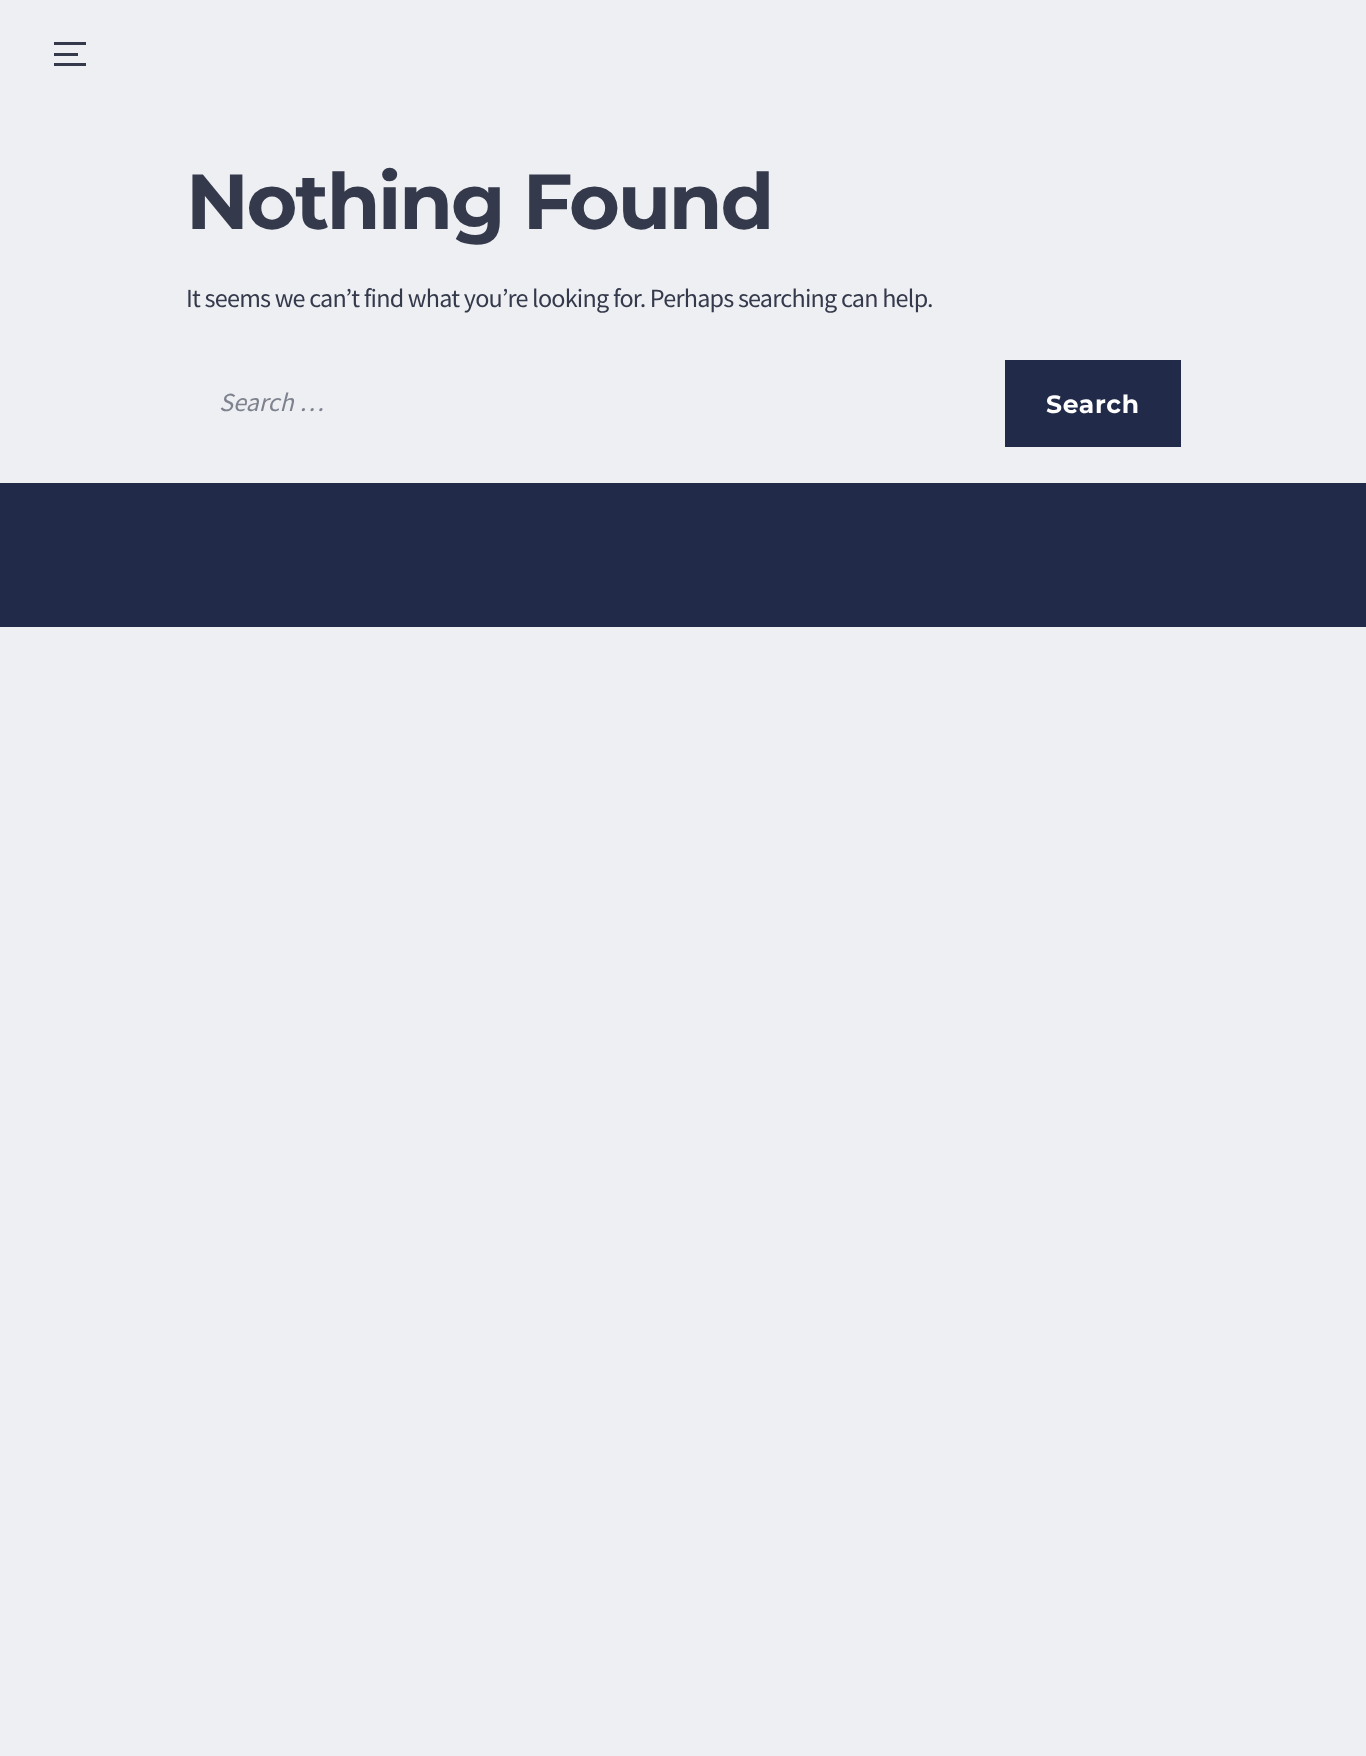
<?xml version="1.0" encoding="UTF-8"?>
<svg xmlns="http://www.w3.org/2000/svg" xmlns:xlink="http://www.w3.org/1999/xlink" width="1366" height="1756">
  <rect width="100%" height="100%" fill="#eeeff2" />
  <rect x="54" y="42" width="32" height="3" fill="#34394b" />
  <rect x="54" y="53" width="24" height="3" fill="#34394b" />
  <rect x="54" y="63" width="32" height="3" fill="#34394b" />
  <rect x="1005" y="360" width="176" height="87" fill="#212b49" />
  <rect y="483" width="1366" height="144" fill="#212b49" />
  <text x="186" y="229" style="font-family: Montserrat; font-size: 77.75px; font-weight: 100; letter-spacing: -2.3px; fill: #34394b">Nothing Found</text>
  <text x="186" y="307" style="font-family: Source Sans Pro; font-size: 26.15px; letter-spacing: -0.78px; fill: #34394b">It seems we can’t find what you’re looking for. Perhaps searching can help.</text>
  <text x="219" y="411" style="font-family: Source Sans Pro; font-size: 26.15px; font-style: italic; fill: #7e828e">Search …</text>
  <text x="1046" y="413" style="font-family: Montserrat; font-size: 25px; font-weight: 100; letter-spacing: 0.75px; fill: #ffffff">Search</text>
</svg>
